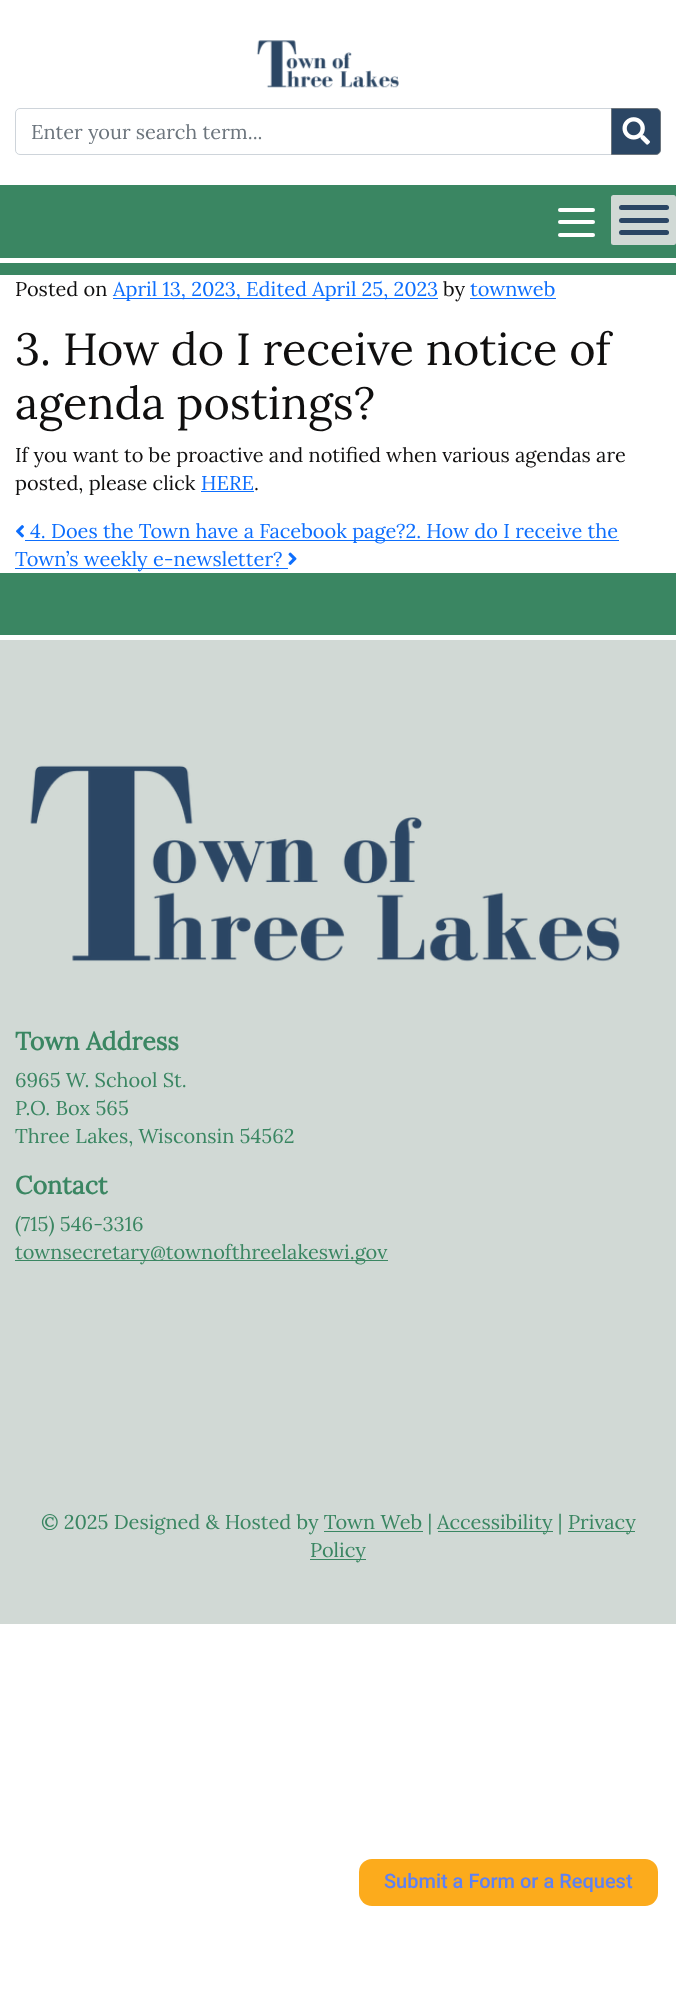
<?xml version="1.0" encoding="UTF-8"?>
<svg xmlns="http://www.w3.org/2000/svg" xmlns:xlink="http://www.w3.org/1999/xlink" width="676" height="2006">
  <defs>
    <clipPath id="clip1"><rect x="31" y="119" width="565" height="25" /></clipPath>
  </defs>
  <rect width="100%" height="100%" fill="#ffffff" />
  <rect y="185" width="676" height="90" fill="#3a8662" />
  <image x="256" y="40" width="143" height="48" xlink:href="image1.png" />
  <path d="M 20 108.5 h 592.5 v 46 h -592.5 c -2.5 0 -4.5 -2 -4.5 -4.5 v -37 c 0 -2.5 2 -4.5 4.5 -4.5 z" fill="none" stroke="#ced4da" />
  <path d="M 611.5 108.5 h 44.5 c 2.5 0 4.5 2 4.5 4.5 v 37 c 0 2.5 -2 4.5 -4.5 4.5 h -44.5 z" fill="#2b4664" stroke="#6c757d" />
  <image x="622" y="117" width="28" height="28" xlink:href="image2.png" />
  <rect x="558" y="208" width="37" height="4" rx="2" fill="#ffffff" />
  <rect x="558" y="220" width="37" height="4" rx="2" fill="#ffffff" />
  <rect x="558" y="233" width="37" height="4" rx="2" fill="#ffffff" />
  <rect x="611" y="195" width="65" height="50" rx="2.5" fill="#d1d9d5" />
  <rect x="619" y="205" width="50" height="5" rx="2.5" fill="#2b4664" />
  <rect x="619" y="218" width="50" height="5" rx="2.5" fill="#2b4664" />
  <rect x="619" y="230" width="50" height="5" rx="2.5" fill="#2b4664" />
  <rect y="258" width="676" height="5" fill="#ffffff" />
  <rect x="113" y="298" width="325" height="1" fill="#0d6efd" />
  <rect x="470" y="298" width="86" height="1" fill="#0d6efd" />
  <rect x="201" y="491" width="53" height="1" fill="#0d6efd" />
  <image x="16" y="525" width="8" height="13" xlink:href="image3.png" />
  <rect x="25" y="540" width="594" height="1" fill="#0d6efd" />
  <rect x="15" y="568" width="273" height="1" fill="#0d6efd" />
  <image x="288" y="552" width="9" height="13" xlink:href="image4.png" />
  <rect y="640" width="676" height="984" fill="#d1d9d5" />
  <rect y="573" width="676" height="62" fill="#3a8662" />
  <image x="30" y="765" width="590" height="197" xlink:href="image5.png" />
  <rect x="15" y="1260" width="373" height="1" fill="#3a8662" />
  <rect x="438" y="1531" width="115" height="1" fill="#3a8662" />
  <rect x="568" y="1531" width="67" height="1" fill="#3a8662" />
  <rect x="324" y="1531" width="99" height="1" fill="#3a8662" />
  <rect x="310" y="1559" width="56" height="1" fill="#3a8662" />
  <rect x="359" y="1859" width="299" height="47" rx="13" fill="#fcab1c" />
  <g clip-path="url(#clip1)">
    <text x="31" y="139" style="font-family: Lora; font-size: 20px; fill: #6c757d">Enter your search term...</text>
  </g>
  <text x="15" y="296" style="font-family: Lora; font-size: 20px; fill: #100f0f">Posted on</text>
  <text x="113" y="296" style="font-family: Lora; font-size: 20px; fill: #0d6efd">April 13, 2023, Edited April 25, 2023</text>
  <text x="443" y="296" style="font-family: Lora; font-size: 20px; fill: #100f0f">by</text>
  <text x="470" y="296" style="font-family: Lora; font-size: 20px; fill: #0d6efd">townweb</text>
  <text x="15" y="365" style="font-family: Lora; font-size: 45px; fill: #100f0f">3. How do I receive notice of</text>
  <text x="15" y="419" style="font-family: Lora; font-size: 45px; fill: #100f0f">agenda postings?</text>
  <text x="15" y="462" style="font-family: Lora; font-size: 20px; fill: #100f0f">If you want to be proactive and notified when various agendas are</text>
  <text x="15" y="490" style="font-family: Lora; font-size: 20px; fill: #100f0f">posted, please click</text>
  <text x="201" y="490" style="font-family: Lora; font-size: 20px; fill: #0d6efd">HERE</text>
  <text x="254" y="490" style="font-family: Lora; font-size: 20px; fill: #100f0f">.</text>
  <text x="30" y="538" style="font-family: Lora; font-size: 20px; fill: #0d6efd">4. Does the Town have a Facebook page?2. How do I receive the</text>
  <text x="15" y="566" style="font-family: Lora; font-size: 20px; fill: #0d6efd">Town’s weekly e-newsletter?</text>
  <text x="15" y="1050" style="font-family: Lora; font-size: 25px; font-weight: bold; fill: #3a8662">Town Address</text>
  <text x="15" y="1087" style="font-family: Lora; font-size: 20px; fill: #3a8662">6965 W. School St.</text>
  <text x="15" y="1115" style="font-family: Lora; font-size: 20px; fill: #3a8662">P.O. Box 565</text>
  <text x="15" y="1143" style="font-family: Lora; font-size: 20px; fill: #3a8662">Three Lakes, Wisconsin 54562</text>
  <text x="15" y="1194" style="font-family: Lora; font-size: 25px; font-weight: bold; fill: #3a8662">Contact</text>
  <text x="15" y="1231" style="font-family: Lora; font-size: 20px; fill: #3a8662">(715) 546-3316</text>
  <text x="15" y="1259" style="font-family: Lora; font-size: 20px; fill: #3a8662">townsecretary@townofthreelakeswi.gov</text>
  <text x="41" y="1529" style="font-family: Lora; font-size: 20px; fill: #3a8662">© 2025 Designed &amp; Hosted by Town Web |</text>
  <text x="437" y="1529" style="font-family: Lora; font-size: 20px; fill: #3a8662">Accessibility |</text>
  <text x="568" y="1529" style="font-family: Lora; font-size: 20px; fill: #3a8662">Privacy</text>
  <text x="310" y="1557" style="font-family: Lora; font-size: 20px; fill: #3a8662">Policy</text>
  <text x="384" y="1888" style="font-family: Roboto; font-size: 20px; font-weight: 500; fill: #5e81f4">Submit a Form or a Request</text>
</svg>
